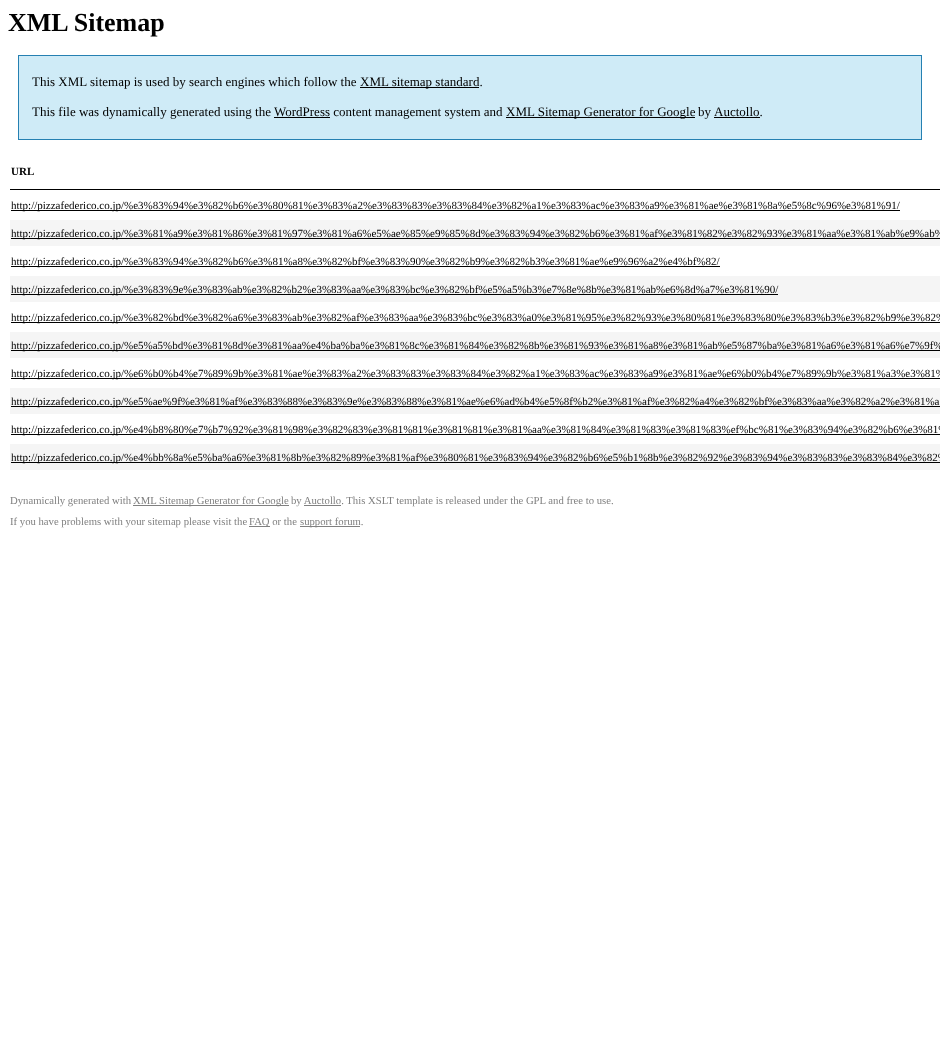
<?xml version="1.0" encoding="UTF-8"?>
<svg xmlns="http://www.w3.org/2000/svg" xmlns:xlink="http://www.w3.org/1999/xlink" width="940" height="1055">
  <rect width="100%" height="100%" fill="#ffffff" />
  <rect x="18.5" y="55.5" width="903" height="84" fill="#cfebf7" stroke="#2580b2" />
  <rect x="360" y="87" width="119" height="1" fill="#000000" />
  <rect x="506" y="117" width="189" height="1" fill="#000000" />
  <rect x="714" y="117" width="46" height="1" fill="#000000" />
  <rect x="274" y="117" width="56" height="1" fill="#000000" />
  <rect x="10" y="189" width="930" height="1" fill="#000000" />
  <rect x="11" y="210" width="889" height="1" fill="#000000" />
  <rect x="10" y="220" width="930" height="26" fill="#f5f5f5" />
  <rect x="11" y="238" width="929" height="1" fill="#000000" />
  <rect x="11" y="266" width="709" height="1" fill="#000000" />
  <rect x="10" y="276" width="930" height="26" fill="#f5f5f5" />
  <rect x="11" y="294" width="767" height="1" fill="#000000" />
  <rect x="11" y="322" width="929" height="1" fill="#000000" />
  <rect x="10" y="332" width="930" height="26" fill="#f5f5f5" />
  <rect x="11" y="350" width="929" height="1" fill="#000000" />
  <rect x="11" y="378" width="929" height="1" fill="#000000" />
  <rect x="10" y="388" width="930" height="26" fill="#f5f5f5" />
  <rect x="11" y="406" width="929" height="1" fill="#000000" />
  <rect x="11" y="434" width="929" height="1" fill="#000000" />
  <rect x="10" y="444" width="930" height="26" fill="#f5f5f5" />
  <rect x="11" y="462" width="929" height="1" fill="#000000" />
  <rect x="133" y="505" width="156" height="1" fill="#808080" />
  <rect x="304" y="505" width="37" height="1" fill="#808080" />
  <rect x="249" y="526" width="21" height="1" fill="#808080" />
  <rect x="300" y="526" width="60" height="1" fill="#808080" />
  <text x="8" y="31" style="font-family: Liberation Serif; font-size: 26px; font-weight: bold; fill: #000000">XML Sitemap</text>
  <text x="32" y="86" style="font-family: Liberation Serif; font-size: 13px; fill: #000000">This XML sitemap is used by search engines which follow the</text>
  <text x="360" y="86" style="font-family: Liberation Serif; font-size: 13px; fill: #000000">XML sitemap standard.</text>
  <text x="32" y="116" style="font-family: Liberation Serif; font-size: 13px; fill: #000000">This file was dynamically generated using the WordPress content management system and</text>
  <text x="506" y="116" style="font-family: Liberation Serif; font-size: 13px; fill: #000000">XML Sitemap Generator for Google</text>
  <text x="698" y="116" style="font-family: Liberation Serif; font-size: 13px; fill: #000000">by</text>
  <text x="714" y="116" style="font-family: Liberation Serif; font-size: 13px; fill: #000000">Auctollo.</text>
  <text x="11" y="175" style="font-family: Liberation Serif; font-size: 11px; font-weight: bold; fill: #000000">URL</text>
  <text x="11" y="209" style="font-family: Liberation Serif; font-size: 11px; fill: #000000">http://pizzafederico.co.jp/%e3%83%94%e3%82%b6%e3%80%81%e3%83%a2%e3%83%83%e3%83%84%e3%82%a1%e3%83%ac%e3%83%a9%e3%81%ae%e3%81%8a%e5%8c%96%e3%81%91/</text>
  <text x="11" y="237" style="font-family: Liberation Serif; font-size: 11px; fill: #000000">http://pizzafederico.co.jp/%e3%81%a9%e3%81%86%e3%81%97%e3%81%a6%e5%ae%85%e9%85%8d%e3%83%94%e3%82%b6%e3%81%af%e3%81%82%e3%82%93%e3%81%aa%e3%81%ab%e9%ab%</text>
  <text x="11" y="265" style="font-family: Liberation Serif; font-size: 11px; fill: #000000">http://pizzafederico.co.jp/%e3%83%94%e3%82%b6%e3%81%a8%e3%82%bf%e3%83%90%e3%82%b9%e3%82%b3%e3%81%ae%e9%96%a2%e4%bf%82/</text>
  <text x="11" y="293" style="font-family: Liberation Serif; font-size: 11px; fill: #000000">http://pizzafederico.co.jp/%e3%83%9e%e3%83%ab%e3%82%b2%e3%83%aa%e3%83%bc%e3%82%bf%e5%a5%b3%e7%8e%8b%e3%81%ab%e6%8d%a7%e3%81%90/</text>
  <text x="11" y="321" style="font-family: Liberation Serif; font-size: 11px; fill: #000000">http://pizzafederico.co.jp/%e3%82%bd%e3%82%a6%e3%83%ab%e3%82%af%e3%83%aa%e3%83%bc%e3%83%a0%e3%81%95%e3%82%93%e3%80%81%e3%83%80%e3%83%b3%e3%82%b9%e3%82%</text>
  <text x="11" y="349" style="font-family: Liberation Serif; font-size: 11px; fill: #000000">http://pizzafederico.co.jp/%e5%a5%bd%e3%81%8d%e3%81%aa%e4%ba%ba%e3%81%8c%e3%81%84%e3%82%8b%e3%81%93%e3%81%a8%e3%81%ab%e5%87%ba%e3%81%a6%e3%81%a6%e7%9f%</text>
  <text x="11" y="377" style="font-family: Liberation Serif; font-size: 11px; fill: #000000">http://pizzafederico.co.jp/%e6%b0%b4%e7%89%9b%e3%81%ae%e3%83%a2%e3%83%83%e3%83%84%e3%82%a1%e3%83%ac%e3%83%a9%e3%81%ae%e6%b0%b4%e7%89%9b%e3%81%a3%e3%81%</text>
  <text x="11" y="405" style="font-family: Liberation Serif; font-size: 11px; fill: #000000">http://pizzafederico.co.jp/%e5%ae%9f%e3%81%af%e3%83%88%e3%83%9e%e3%83%88%e3%81%ae%e6%ad%b4%e5%8f%b2%e3%81%af%e3%82%a4%e3%82%bf%e3%83%aa%e3%82%a2%e3%81%a</text>
  <text x="11" y="433" style="font-family: Liberation Serif; font-size: 11px; fill: #000000">http://pizzafederico.co.jp/%e4%b8%80%e7%b7%92%e3%81%98%e3%82%83%e3%81%81%e3%81%81%e3%81%aa%e3%81%84%e3%81%83%e3%81%83%ef%bc%81%e3%83%94%e3%82%b6%e3%81%</text>
  <text x="11" y="461" style="font-family: Liberation Serif; font-size: 11px; fill: #000000">http://pizzafederico.co.jp/%e4%bb%8a%e5%ba%a6%e3%81%8b%e3%82%89%e3%81%af%e3%80%81%e3%83%94%e3%82%b6%e5%b1%8b%e3%82%92%e3%83%94%e3%83%83%e3%83%84%e3%82%</text>
  <text x="10" y="504" style="font-family: Liberation Serif; font-size: 10.7px; fill: #808080">Dynamically generated with</text>
  <text x="133" y="504" style="font-family: Liberation Serif; font-size: 10.7px; fill: #808080">XML Sitemap Generator for Google</text>
  <text x="291" y="504" style="font-family: Liberation Serif; font-size: 10.7px; fill: #808080">by Auctollo. This XSLT template is released under the GPL and free to use.</text>
  <text x="10" y="525" style="font-family: Liberation Serif; font-size: 10.7px; fill: #808080">If you have problems with your sitemap please visit the</text>
  <text x="249" y="525" style="font-family: Liberation Serif; font-size: 10.7px; fill: #808080">FAQ or the</text>
  <text x="300" y="525" style="font-family: Liberation Serif; font-size: 10.7px; fill: #808080">support forum.</text>
</svg>
